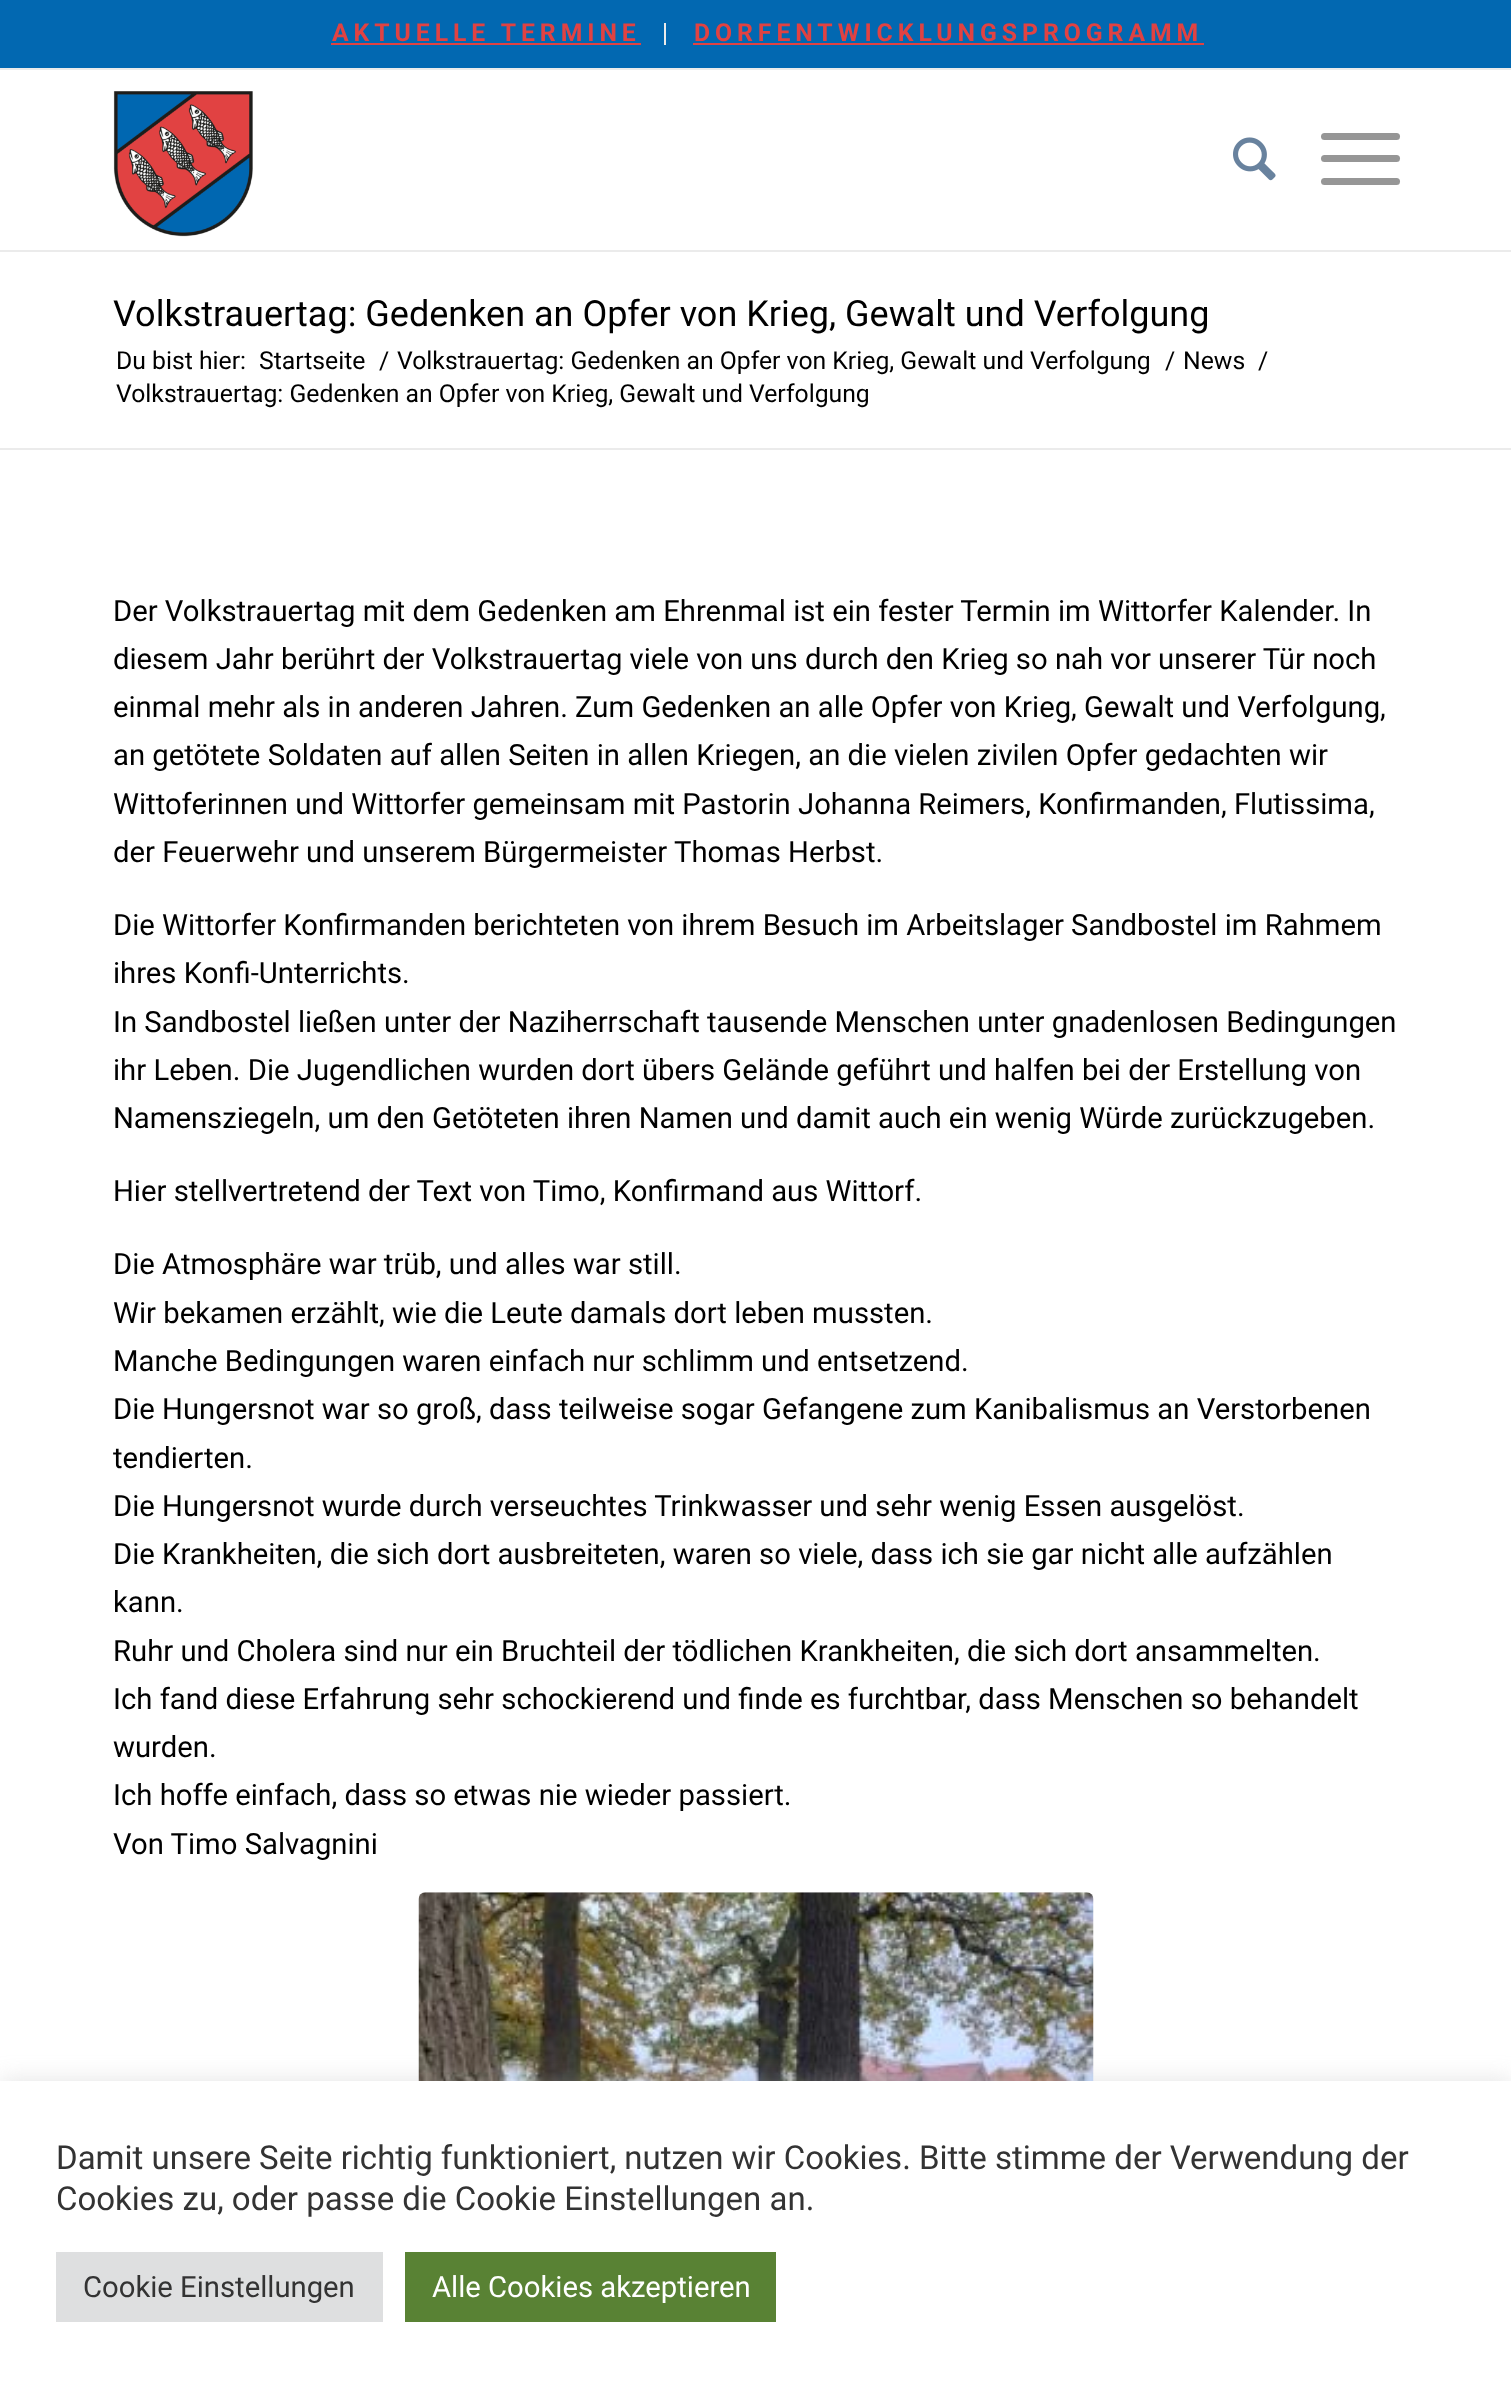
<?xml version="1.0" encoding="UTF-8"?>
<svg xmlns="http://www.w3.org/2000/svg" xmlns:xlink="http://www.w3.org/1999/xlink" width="1511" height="2388">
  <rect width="100%" height="100%" fill="#ffffff" />
  <rect width="1511" height="68" fill="#0268b1" />
  <rect y="68" width="1511" height="2" fill="#ebebeb" />
  <rect x="664" y="23" width="2" height="22" fill="#ebebeb" />
  <rect x="331" y="43" width="310" height="2" fill="#e14242" />
  <rect x="693" y="43" width="511" height="2" fill="#e14242" />
  <rect y="250" width="1511" height="2" fill="#ebebeb" />
  <image x="113" y="91" width="140" height="146" xlink:href="image1.png" />
  <image x="1233" y="137" width="43" height="44" xlink:href="image2.png" />
  <rect x="1321" y="155" width="79" height="7" rx="3.5" fill="#969696" />
  <rect x="1321" y="133" width="79" height="7" rx="3.5" fill="#969696" />
  <rect x="1321" y="178" width="79" height="7" rx="3.5" fill="#969696" />
  <rect y="448" width="1511" height="2" fill="#ebebeb" />
  <image x="418" y="1892" width="676" height="189" xlink:href="image3.png" />
  <rect y="2079" width="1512" height="308" fill="#acabab" fill-opacity="0.3" filter="blur(11px)" />
  <rect y="2081" width="1511" height="307" fill="#ffffff" />
  <rect x="56" y="2252" width="327" height="70" fill="#dedfe0" />
  <rect x="405" y="2252" width="371" height="70" fill="#598234" />
  <text x="332" y="41" style="font-family: Roboto; font-size: 24.75px; font-weight: bold; letter-spacing: 4.95px; fill: #e14242">AKTUELLE TERMINE</text>
  <text x="694" y="41" style="font-family: Roboto; font-size: 24.75px; font-weight: bold; letter-spacing: 4.95px; fill: #e14242">DORFENTWICKLUNGSPROGRAMM</text>
  <text x="113" y="326" style="font-family: Roboto; font-size: 36px; fill: #000000">Volkstrauertag: Gedenken an Opfer von Krieg, Gewalt und Verfolgung</text>
  <text x="116" y="369" style="font-family: Roboto; font-size: 24.75px; fill: #000000">Du bist hier:</text>
  <text x="259" y="369" style="font-family: Roboto; font-size: 24.75px; fill: #000000">Startseite</text>
  <text x="379" y="369" style="font-family: Roboto; font-size: 24.75px; fill: #000000">/</text>
  <text x="397" y="369" style="font-family: Roboto; font-size: 24.75px; fill: #000000">Volkstrauertag: Gedenken an Opfer von Krieg, Gewalt und Verfolgung</text>
  <text x="1165" y="369" style="font-family: Roboto; font-size: 24.75px; fill: #000000">/</text>
  <text x="1183" y="369" style="font-family: Roboto; font-size: 24.75px; fill: #000000">News</text>
  <text x="1258" y="369" style="font-family: Roboto; font-size: 24.75px; fill: #000000">/</text>
  <text x="116" y="402" style="font-family: Roboto; font-size: 24.75px; fill: #000000">Volkstrauertag: Gedenken an Opfer von Krieg, Gewalt und Verfolgung</text>
  <text x="113" y="621" style="font-family: Roboto; font-size: 29.25px; fill: #000000">Der Volkstrauertag mit dem Gedenken am Ehrenmal ist ein fester Termin im Wittorfer Kalender. In</text>
  <text x="113" y="669" style="font-family: Roboto; font-size: 29.25px; fill: #000000">diesem Jahr berührt der Volkstrauertag viele von uns durch den Krieg so nah vor unserer Tür noch</text>
  <text x="113" y="717" style="font-family: Roboto; font-size: 29.25px; fill: #000000">einmal mehr als in anderen Jahren. Zum Gedenken an alle Opfer von Krieg, Gewalt und Verfolgung,</text>
  <text x="113" y="765" style="font-family: Roboto; font-size: 29.25px; fill: #000000">an getötete Soldaten auf allen Seiten in allen Kriegen, an die vielen zivilen Opfer gedachten wir</text>
  <text x="113" y="814" style="font-family: Roboto; font-size: 29.25px; fill: #000000">Wittoferinnen und Wittorfer gemeinsam mit Pastorin Johanna Reimers, Konfirmanden, Flutissima,</text>
  <text x="113" y="862" style="font-family: Roboto; font-size: 29.25px; fill: #000000">der Feuerwehr und unserem Bürgermeister Thomas Herbst.</text>
  <text x="113" y="935" style="font-family: Roboto; font-size: 29.25px; fill: #000000">Die Wittorfer Konfirmanden berichteten von ihrem Besuch im Arbeitslager Sandbostel im Rahmem</text>
  <text x="113" y="983" style="font-family: Roboto; font-size: 29.25px; fill: #000000">ihres Konfi-Unterrichts.</text>
  <text x="113" y="1032" style="font-family: Roboto; font-size: 29.25px; fill: #000000">In Sandbostel ließen unter der Naziherrschaft tausende Menschen unter gnadenlosen Bedingungen</text>
  <text x="113" y="1080" style="font-family: Roboto; font-size: 29.25px; fill: #000000">ihr Leben. Die Jugendlichen wurden dort übers Gelände geführt und halfen bei der Erstellung von</text>
  <text x="113" y="1128" style="font-family: Roboto; font-size: 29.25px; fill: #000000">Namensziegeln, um den Getöteten ihren Namen und damit auch ein wenig Würde zurückzugeben.</text>
  <text x="113" y="1201" style="font-family: Roboto; font-size: 29.25px; fill: #000000">Hier stellvertretend der Text von Timo, Konfirmand aus Wittorf.</text>
  <text x="113" y="1274" style="font-family: Roboto; font-size: 29.25px; fill: #000000">Die Atmosphäre war trüb, und alles war still.</text>
  <text x="113" y="1323" style="font-family: Roboto; font-size: 29.25px; fill: #000000">Wir bekamen erzählt, wie die Leute damals dort leben mussten.</text>
  <text x="113" y="1371" style="font-family: Roboto; font-size: 29.25px; fill: #000000">Manche Bedingungen waren einfach nur schlimm und entsetzend.</text>
  <text x="113" y="1419" style="font-family: Roboto; font-size: 29.25px; fill: #000000">Die Hungersnot war so groß, dass teilweise sogar Gefangene zum Kanibalismus an Verstorbenen</text>
  <text x="113" y="1468" style="font-family: Roboto; font-size: 29.25px; fill: #000000">tendierten.</text>
  <text x="113" y="1516" style="font-family: Roboto; font-size: 29.25px; fill: #000000">Die Hungersnot wurde durch verseuchtes Trinkwasser und sehr wenig Essen ausgelöst.</text>
  <text x="113" y="1564" style="font-family: Roboto; font-size: 29.25px; fill: #000000">Die Krankheiten, die sich dort ausbreiteten, waren so viele, dass ich sie gar nicht alle aufzählen</text>
  <text x="113" y="1612" style="font-family: Roboto; font-size: 29.25px; fill: #000000">kann.</text>
  <text x="113" y="1661" style="font-family: Roboto; font-size: 29.25px; fill: #000000">Ruhr und Cholera sind nur ein Bruchteil der tödlichen Krankheiten, die sich dort ansammelten.</text>
  <text x="113" y="1709" style="font-family: Roboto; font-size: 29.25px; fill: #000000">Ich fand diese Erfahrung sehr schockierend und finde es furchtbar, dass Menschen so behandelt</text>
  <text x="113" y="1757" style="font-family: Roboto; font-size: 29.25px; fill: #000000">wurden.</text>
  <text x="113" y="1805" style="font-family: Roboto; font-size: 29.25px; fill: #000000">Ich hoffe einfach, dass so etwas nie wieder passiert.</text>
  <text x="113" y="1854" style="font-family: Roboto; font-size: 29.25px; fill: #000000">Von Timo Salvagnini</text>
  <text x="56" y="2169" style="font-family: Roboto; font-size: 33px; fill: #333333">Damit unsere Seite richtig funktioniert, nutzen wir Cookies. Bitte stimme der Verwendung der</text>
  <text x="56" y="2210" style="font-family: Roboto; font-size: 33px; fill: #333333">Cookies zu, oder passe die Cookie Einstellungen an.</text>
  <text x="83" y="2297" style="font-family: Roboto; font-size: 29.25px; fill: #333333">Cookie Einstellungen</text>
  <text x="432" y="2297" style="font-family: Roboto; font-size: 29.25px; fill: #ffffff">Alle Cookies akzeptieren</text>
</svg>
